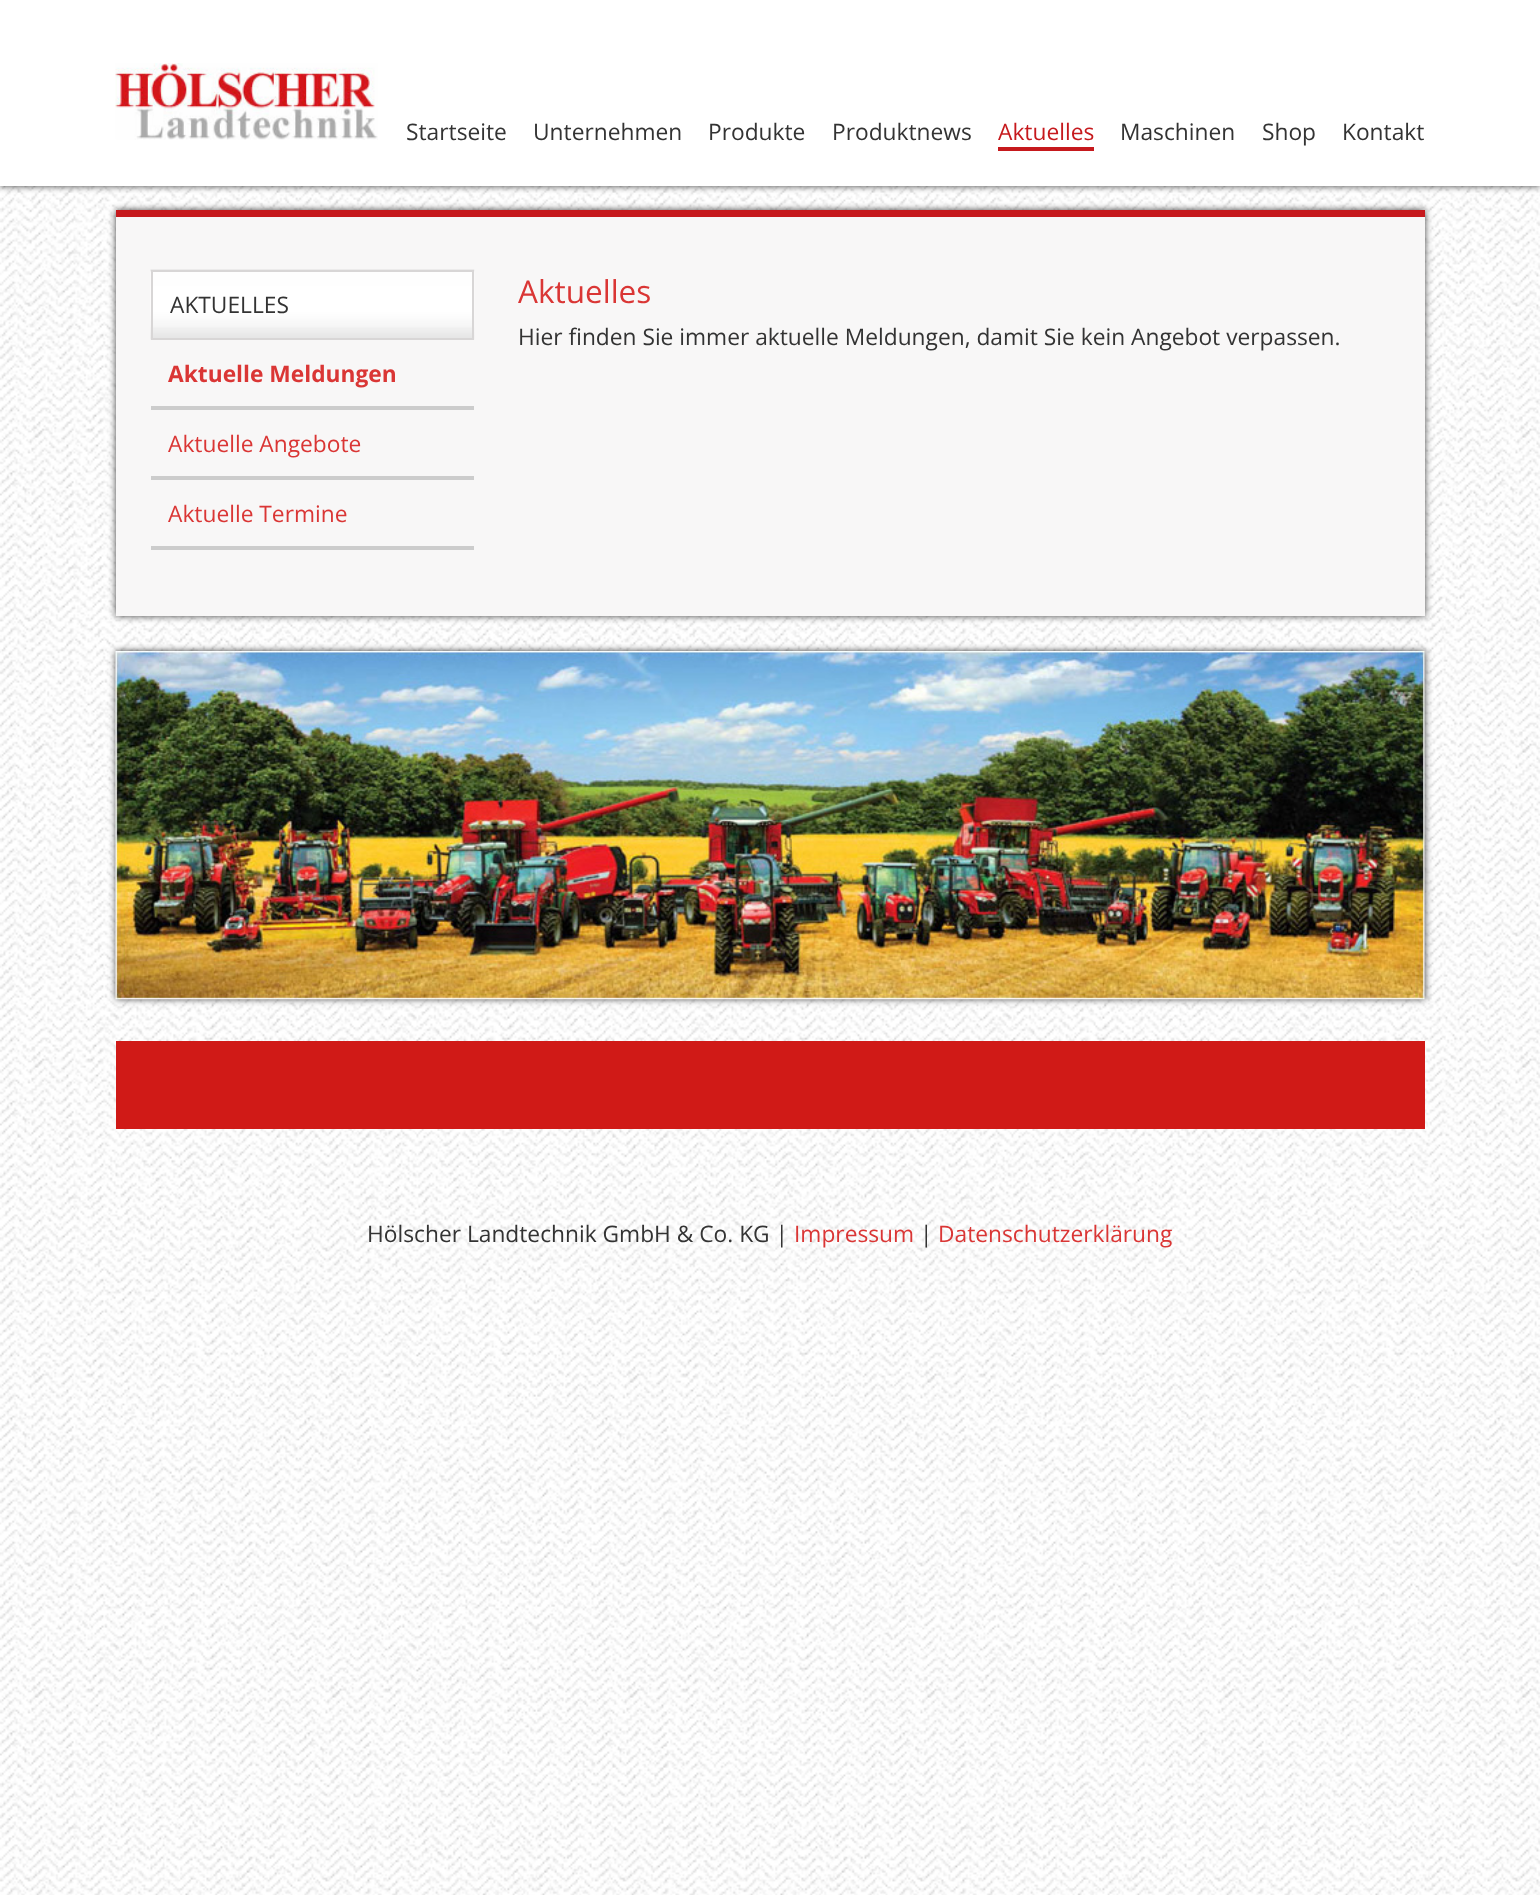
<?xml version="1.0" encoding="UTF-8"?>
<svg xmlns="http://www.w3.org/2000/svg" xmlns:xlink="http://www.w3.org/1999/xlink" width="1540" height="1895">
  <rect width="100%" height="100%" fill="#ffffff" />
  <image x="0" y="186" width="1540" height="1709" xlink:href="image1.png" />
  <rect width="1540" height="186" fill="#000000" fill-opacity="0.75" filter="blur(3.5px)" />
  <rect width="1540" height="186" fill="#ffffff" />
  <image x="115" y="63" width="263" height="77" xlink:href="image2.png" />
  <rect x="998" y="147" width="96" height="4" fill="#c6191d" />
  <rect x="116" y="210" width="1309" height="406" fill="#000000" fill-opacity="0.75" filter="blur(3.5px)" />
  <rect x="116" y="217" width="1309" height="399" fill="#f8f7f7" />
  <rect x="116" y="210" width="1309" height="7" fill="#c6191d" />
  <image x="150" y="269" width="325" height="71" xlink:href="image3.png" />
  <rect x="152" y="271" width="321" height="68" fill="none" stroke="#d8d6d6" stroke-width="2" />
  <rect x="151" y="406" width="323" height="4" fill="#cccccc" />
  <rect x="151" y="476" width="323" height="4" fill="#cccccc" />
  <rect x="151" y="546" width="323" height="4" fill="#cccccc" />
  <rect x="116" y="651" width="1309" height="348" fill="#000000" fill-opacity="0.75" filter="blur(3.5px)" />
  <image x="115" y="651" width="1310" height="349" xlink:href="image4.png" />
  <rect x="116" y="1041" width="1309" height="88" fill="#d01a17" />
  <text x="406" y="140" style="font-family: Open Sans; font-size: 22.75px; fill: #333333">Startseite</text>
  <text x="533" y="140" style="font-family: Open Sans; font-size: 22.75px; fill: #333333">Unternehmen</text>
  <text x="708" y="140" style="font-family: Open Sans; font-size: 22.75px; fill: #333333">Produkte</text>
  <text x="832" y="140" style="font-family: Open Sans; font-size: 22.75px; fill: #333333">Produktnews</text>
  <text x="998" y="140" style="font-family: Open Sans; font-size: 22.75px; fill: #c6191d">Aktuelles</text>
  <text x="1120" y="140" style="font-family: Open Sans; font-size: 22.75px; fill: #333333">Maschinen</text>
  <text x="1262" y="140" style="font-family: Open Sans; font-size: 22.75px; fill: #333333">Shop</text>
  <text x="1342" y="140" style="font-family: Open Sans; font-size: 22.75px; fill: #333333">Kontakt</text>
  <text x="170" y="313" style="font-family: Open Sans; font-size: 22.75px; fill: #333333">AKTUELLES</text>
  <text x="168" y="382" style="font-family: Open Sans; font-size: 22.75px; font-weight: bold; fill: #da3635">Aktuelle Meldungen</text>
  <text x="168" y="452" style="font-family: Open Sans; font-size: 22.75px; fill: #da3635">Aktuelle Angebote</text>
  <text x="168" y="522" style="font-family: Open Sans; font-size: 22.75px; fill: #da3635">Aktuelle Termine</text>
  <text x="518" y="303" style="font-family: Open Sans; font-size: 31.5px; fill: #da3635">Aktuelles</text>
  <text x="518" y="345" style="font-family: Open Sans; font-size: 22.75px; fill: #333333">Hier finden Sie immer aktuelle Meldungen, damit Sie kein Angebot verpassen.</text>
  <text x="367" y="1242" style="font-family: Open Sans; font-size: 22.75px; fill: #333333">Hölscher Landtechnik GmbH &amp; Co. KG |</text>
  <text x="794" y="1242" style="font-family: Open Sans; font-size: 22.75px; fill: #da3635">Impressum</text>
  <text x="920" y="1242" style="font-family: Open Sans; font-size: 22.75px; fill: #333333">|</text>
  <text x="938" y="1242" style="font-family: Open Sans; font-size: 22.75px; fill: #da3635">Datenschutzerklärung</text>
</svg>
